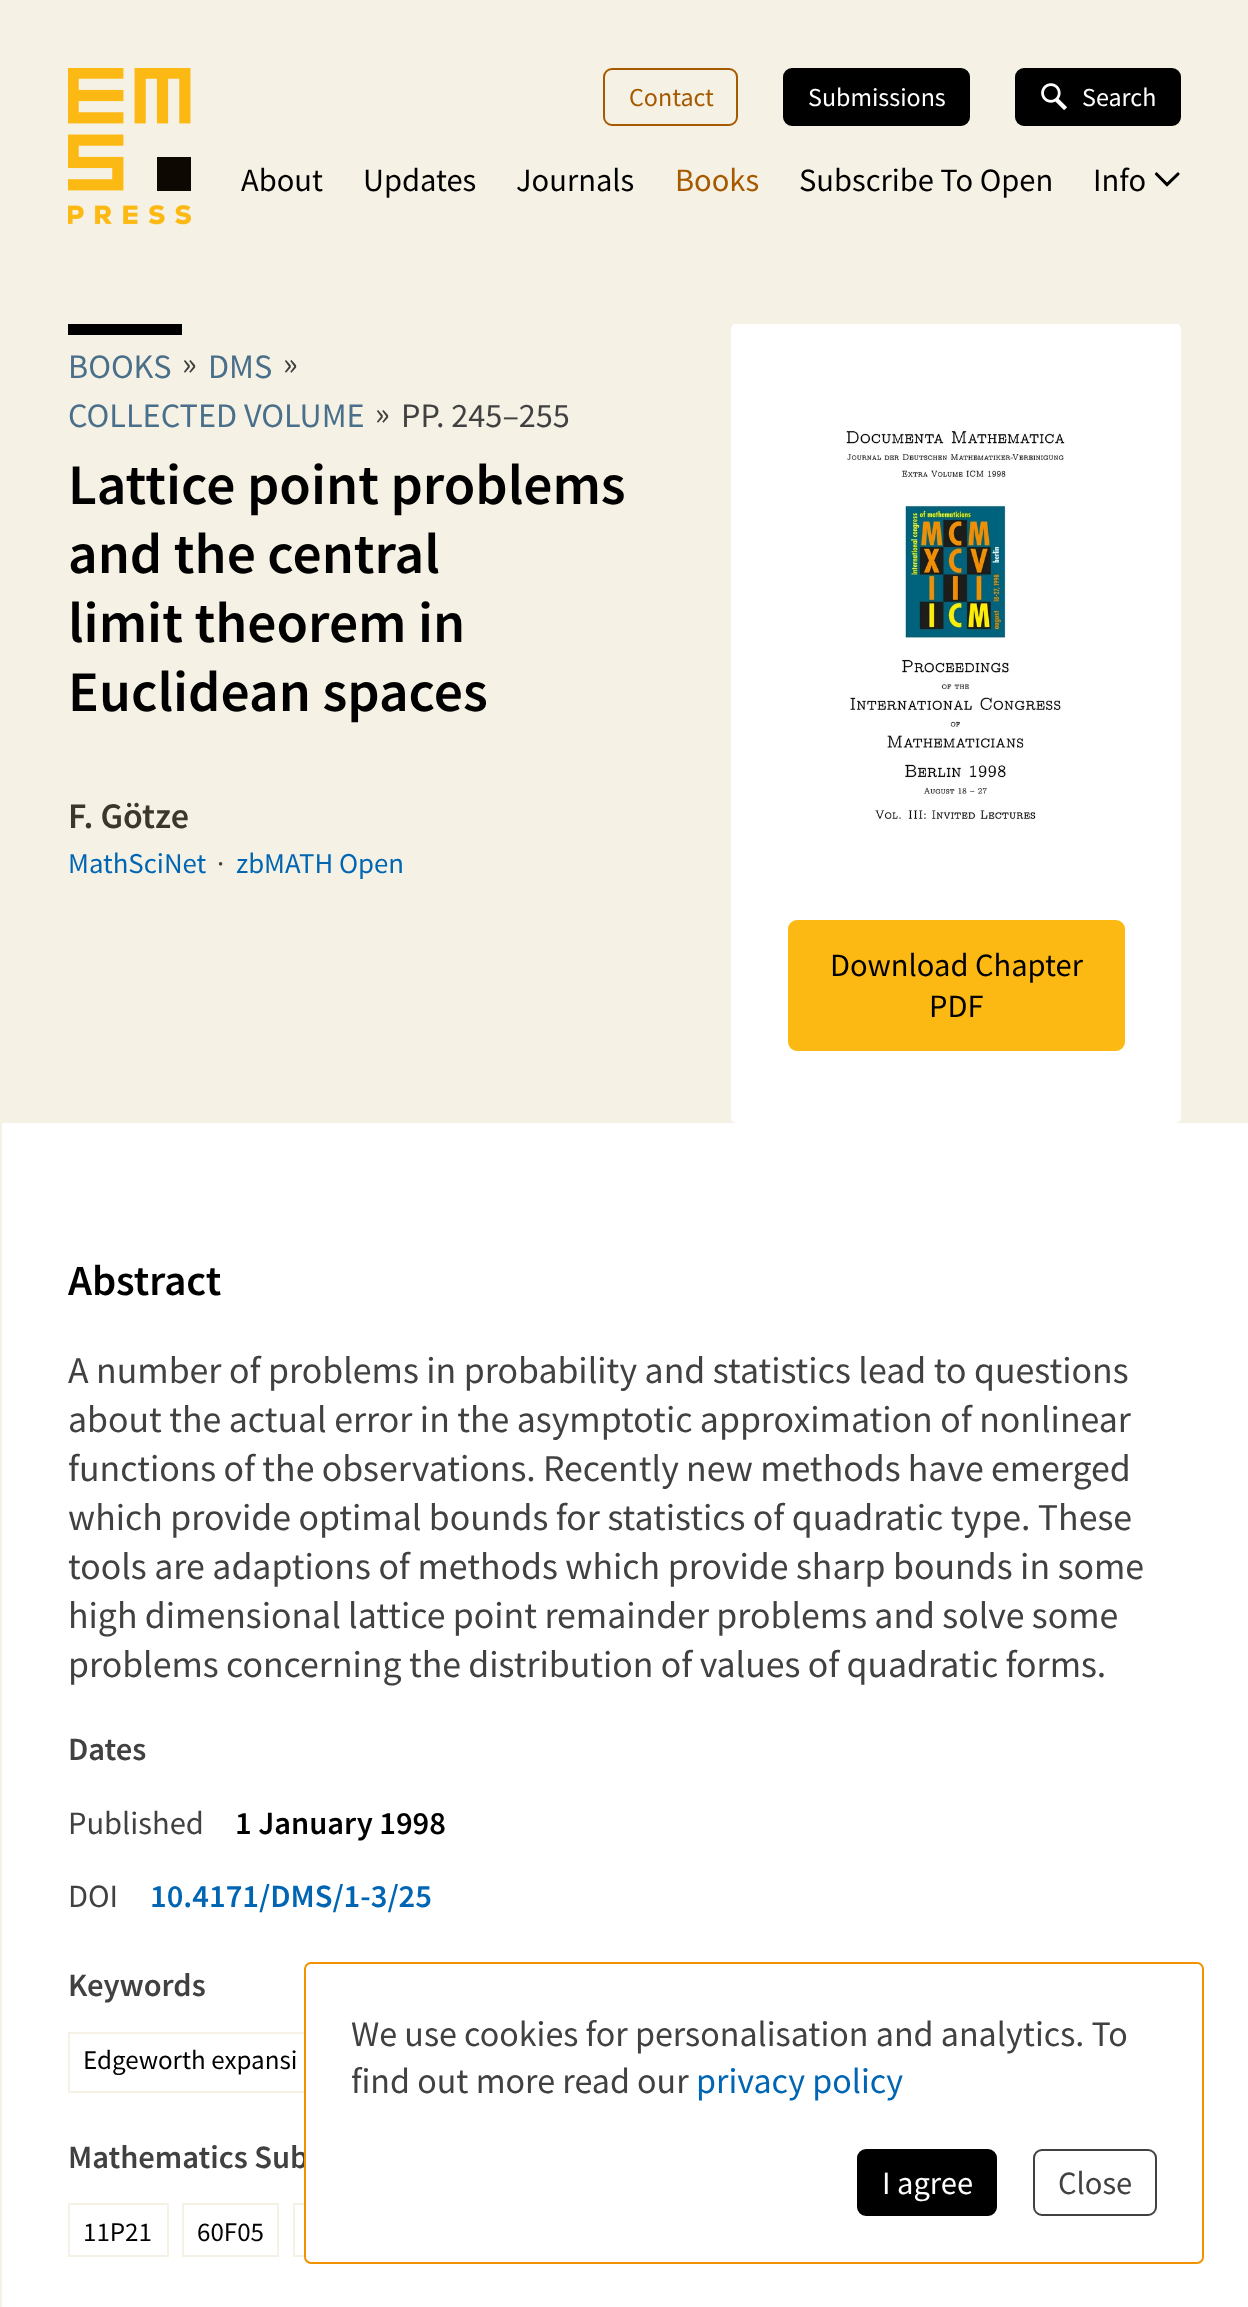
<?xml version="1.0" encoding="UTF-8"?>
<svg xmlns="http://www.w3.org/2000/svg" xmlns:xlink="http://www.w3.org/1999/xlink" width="1248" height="2307">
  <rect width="100%" height="100%" fill="#f5f1e5" />
  <image x="68" y="68" width="123" height="157" xlink:href="image1.png" />
  <rect x="604" y="69" width="133" height="56" rx="8" fill="none" stroke="#a65a00" stroke-width="2" />
  <rect x="784" y="69" width="185" height="56" rx="8" fill="#000000" stroke="#000000" stroke-width="2" />
  <rect x="1016" y="69" width="164" height="56" rx="8" fill="#000000" stroke="#000000" stroke-width="2" />
  <image x="1041" y="83" width="26" height="27" xlink:href="image2.png" />
  <path d="M 1178 174 l -11 10.5 l -10.5 -10.5" fill="none" stroke="#000000" stroke-width="3.1" stroke-linecap="round" />
  <rect x="68" y="324" width="114" height="11" fill="#000000" />
  <rect x="732" y="325" width="448" height="797" rx="4" fill="#ffffff" stroke="#ffffff" stroke-width="2" />
  <image x="846" y="430" width="219" height="390" xlink:href="image3.png" />
  <rect x="789" y="921" width="335" height="129" rx="8" fill="#fdb913" stroke="#fdb913" stroke-width="2" />
  <rect x="2" y="1123" width="1246" height="1184" fill="#ffffff" />
  <rect x="69" y="2033" width="272" height="59" fill="none" stroke="#f5f1e5" stroke-width="2" />
  <rect x="69" y="2204" width="99" height="52" fill="none" stroke="#f5f1e5" stroke-width="2" />
  <rect x="183" y="2204" width="95" height="52" fill="none" stroke="#f5f1e5" stroke-width="2" />
  <rect x="294" y="2204" width="99" height="52" fill="none" stroke="#f5f1e5" stroke-width="2" />
  <text x="629" y="106" style="font-family: Source Sans Pro; font-size: 26px; fill: #a65a00">Contact</text>
  <text x="808" y="106" style="font-family: Source Sans Pro; font-size: 26px; fill: #ffffff">Submissions</text>
  <text x="1082" y="106" style="font-family: Source Sans Pro; font-size: 26px; fill: #ffffff">Search</text>
  <text x="241" y="191" style="font-family: Source Sans Pro; font-size: 32.5px; fill: #000000">About</text>
  <text x="363" y="191" style="font-family: Source Sans Pro; font-size: 32.5px; fill: #000000">Updates</text>
  <text x="516" y="191" style="font-family: Source Sans Pro; font-size: 32.5px; fill: #000000">Journals</text>
  <text x="675" y="191" style="font-family: Source Sans Pro; font-size: 32.5px; fill: #a65a00">Books</text>
  <text x="799" y="191" style="font-family: Source Sans Pro; font-size: 32.5px; fill: #000000">Subscribe To Open</text>
  <text x="1093" y="191" style="font-family: Source Sans Pro; font-size: 32.5px; fill: #000000">Info</text>
  <text x="68" y="378" style="font-family: Source Sans Pro; font-size: 34.25px; fill: #4a6f8a">BOOKS</text>
  <text x="182" y="375" style="font-family: Source Sans Pro; font-size: 34.25px; fill: #414141">»</text>
  <text x="208" y="378" style="font-family: Source Sans Pro; font-size: 34.25px; fill: #4a6f8a">DMS</text>
  <text x="283" y="375" style="font-family: Source Sans Pro; font-size: 34.25px; fill: #414141">»</text>
  <text x="68" y="427" style="font-family: Source Sans Pro; font-size: 34.25px; fill: #4a6f8a">COLLECTED VOLUME</text>
  <text x="375" y="425" style="font-family: Source Sans Pro; font-size: 34.25px; fill: #414141">»</text>
  <text x="401" y="427" style="font-family: Source Sans Pro; font-size: 34.25px; fill: #414141">PP. 245–255</text>
  <text x="68" y="504" style="font-family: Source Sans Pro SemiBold; font-size: 57.5px; font-weight: 600; fill: #000000">Lattice point problems</text>
  <text x="68" y="573" style="font-family: Source Sans Pro SemiBold; font-size: 57.5px; font-weight: 600; fill: #000000">and the central</text>
  <text x="68" y="642" style="font-family: Source Sans Pro SemiBold; font-size: 57.5px; font-weight: 600; fill: #000000">limit theorem in</text>
  <text x="68" y="711" style="font-family: Source Sans Pro SemiBold; font-size: 57.5px; font-weight: 600; fill: #000000">Euclidean spaces</text>
  <text x="68" y="828" style="font-family: Source Sans Pro SemiBold; font-size: 36px; font-weight: 600; fill: #3c372b">F. Götze</text>
  <text x="68" y="873" style="font-family: Source Sans Pro; font-size: 28.75px; fill: #0066b3">MathSciNet</text>
  <text x="217" y="873" style="font-family: Source Sans Pro; font-size: 28.75px; fill: #414141">·</text>
  <text x="236" y="873" style="font-family: Source Sans Pro; font-size: 28.75px; fill: #0066b3">zbMATH Open</text>
  <text x="830" y="976" style="font-family: Source Sans Pro; font-size: 32.5px; fill: #000000">Download Chapter</text>
  <text x="929" y="1017" style="font-family: Source Sans Pro; font-size: 32.5px; fill: #000000">PDF</text>
  <text x="68" y="1295" style="font-family: Source Sans Pro SemiBold; font-size: 43px; font-weight: 600; fill: #000000">Abstract</text>
  <text x="68" y="1383" style="font-family: Source Sans Pro; font-size: 37.8px; fill: #414141">A number of problems in probability and statistics lead to questions</text>
  <text x="68" y="1432" word-spacing="-0.1" style="font-family: Source Sans Pro; font-size: 37.8px; fill: #414141">about the actual error in the asymptotic approximation of nonlinear</text>
  <text x="68" y="1481" word-spacing="-0.25" style="font-family: Source Sans Pro; font-size: 37.8px; fill: #414141">functions of the observations. Recently new methods have emerged</text>
  <text x="68" y="1530" word-spacing="-0.1" style="font-family: Source Sans Pro; font-size: 37.8px; fill: #414141">which provide optimal bounds for statistics of quadratic type. These</text>
  <text x="68" y="1579" style="font-family: Source Sans Pro; font-size: 37.8px; fill: #414141">tools are adaptions of methods which provide sharp bounds in some</text>
  <text x="68" y="1628" word-spacing="-0.25" style="font-family: Source Sans Pro; font-size: 37.8px; fill: #414141">high dimensional lattice point remainder problems and solve some</text>
  <text x="68" y="1677" word-spacing="-0.25" style="font-family: Source Sans Pro; font-size: 37.8px; fill: #414141">problems concerning the distribution of values of quadratic forms.</text>
  <text x="68" y="1760" style="font-family: Source Sans Pro SemiBold; font-size: 32.5px; font-weight: 600; fill: #414141">Dates</text>
  <text x="68" y="1834" style="font-family: Source Sans Pro; font-size: 32.5px; fill: #414141">Published</text>
  <text x="235" y="1834" style="font-family: Source Sans Pro SemiBold; font-size: 32.5px; font-weight: 600; fill: #000000">1 January 1998</text>
  <text x="68" y="1907" style="font-family: Source Sans Pro; font-size: 32.5px; fill: #414141">DOI</text>
  <text x="150" y="1907" style="font-family: Source Sans Pro SemiBold; font-size: 32.5px; font-weight: 600; fill: #0066b3">10.4171/DMS/1-3/25</text>
  <text x="68" y="1996" style="font-family: Source Sans Pro SemiBold; font-size: 32.5px; font-weight: 600; fill: #414141">Keywords</text>
  <text x="83" y="2069" style="font-family: Source Sans Pro; font-size: 27px; fill: #000000">Edgeworth expansi</text>
  <text x="68" y="2168" style="font-family: Source Sans Pro SemiBold; font-size: 32.5px; font-weight: 600; fill: #414141">Mathematics Sub</text>
  <text x="83" y="2241" style="font-family: Source Sans Pro; font-size: 27px; fill: #000000">11P21</text>
  <text x="197" y="2241" style="font-family: Source Sans Pro; font-size: 27px; fill: #000000">60F05</text>
  <rect x="305" y="1963" width="898" height="300" rx="6" fill="#ffffff" stroke="#f39200" stroke-width="2" />
  <text x="351" y="2046" style="font-family: Source Sans Pro; font-size: 36px; fill: #414141">We use cookies for personalisation and analytics. To</text>
  <text x="351" y="2093" style="font-family: Source Sans Pro; font-size: 36px; fill: #414141">find out more read our</text>
  <text x="696" y="2093" style="font-family: Source Sans Pro; font-size: 36px; fill: #0066b3">privacy policy</text>
  <rect x="858" y="2150" width="138" height="65" rx="8" fill="#000000" stroke="#000000" stroke-width="2" />
  <text x="882" y="2194" style="font-family: Source Sans Pro; font-size: 32.5px; fill: #ffffff">I agree</text>
  <rect x="1034" y="2150" width="122" height="65" rx="8" fill="none" stroke="#414141" stroke-width="2" />
  <text x="1058" y="2194" style="font-family: Source Sans Pro; font-size: 32.5px; fill: #414141">Close</text>
</svg>
